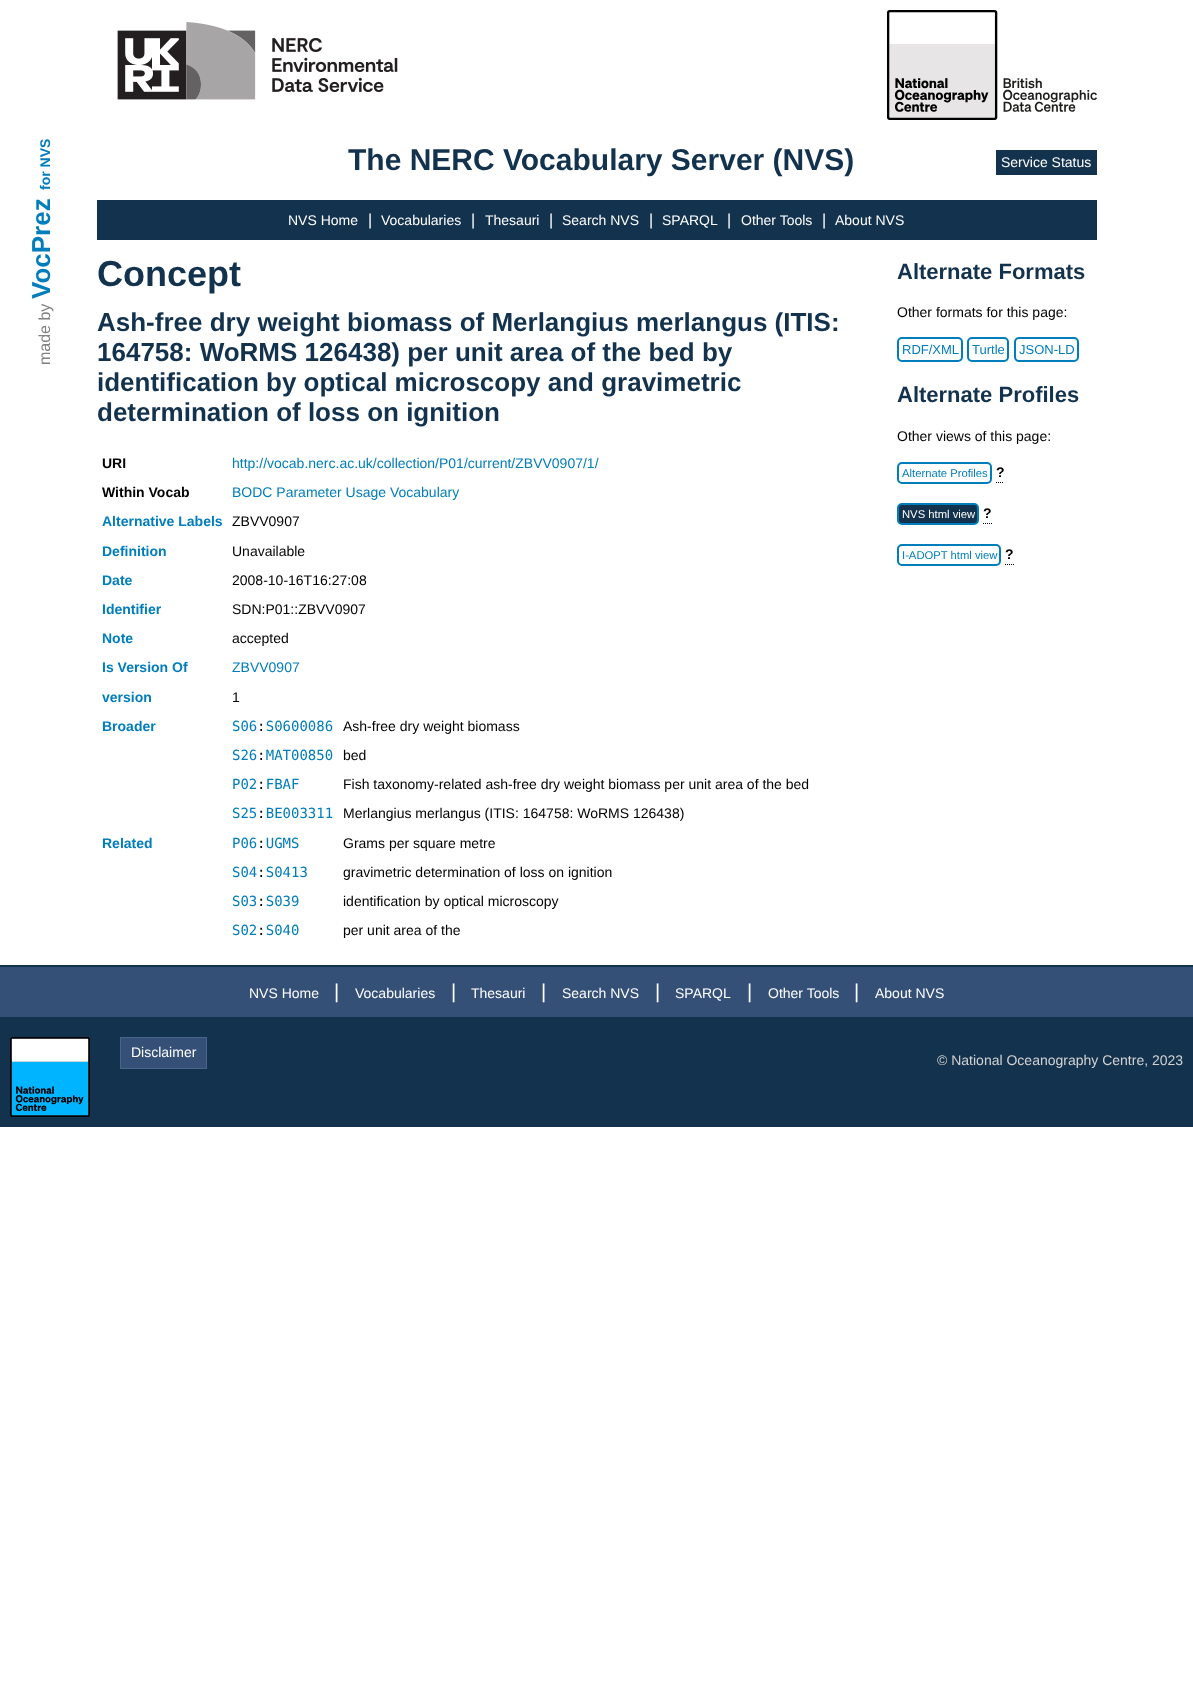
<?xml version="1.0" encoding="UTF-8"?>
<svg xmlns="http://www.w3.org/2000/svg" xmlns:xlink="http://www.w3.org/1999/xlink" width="1193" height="1693">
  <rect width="100%" height="100%" fill="#ffffff" />
  <image x="117" y="22" width="281" height="78" xlink:href="image1.png" />
  <image x="887" y="10" width="210" height="110" xlink:href="image2.png" />
  <rect x="996" y="150" width="101" height="25" fill="#13324d" />
  <rect x="97" y="200" width="1000" height="40" fill="#13324d" />
  <rect x="898" y="338" width="64" height="23" rx="4" fill="none" stroke="#007dbb" stroke-width="2" />
  <rect x="968" y="338" width="40" height="23" rx="4" fill="none" stroke="#007dbb" stroke-width="2" />
  <rect x="1015" y="338" width="63" height="23" rx="4" fill="none" stroke="#007dbb" stroke-width="2" />
  <rect x="898" y="463" width="93" height="20" rx="4" fill="none" stroke="#007dbb" stroke-width="2" />
  <path d="M 996 482.5 h 8" fill="none" stroke="#000000" stroke-dasharray="1 1" />
  <rect x="898" y="504" width="80" height="20" rx="4" fill="#13324d" stroke="#007dbb" stroke-width="2" />
  <path d="M 983 523.5 h 9" fill="none" stroke="#000000" stroke-dasharray="1 1" />
  <rect x="898" y="545" width="102" height="20" rx="4" fill="none" stroke="#007dbb" stroke-width="2" />
  <path d="M 1005 564.5 h 9" fill="none" stroke="#000000" stroke-dasharray="1 1" />
  <rect y="965" width="1193" height="2" fill="#13324d" />
  <rect y="967" width="1193" height="50" fill="#355077" />
  <rect y="1017" width="1193" height="110" fill="#13324d" />
  <rect x="10" y="1037" width="80" height="80" fill="#355077" />
  <image x="10" y="1037" width="80" height="80" xlink:href="image3.png" />
  <rect x="120.5" y="1037.5" width="86" height="31" fill="#355077" stroke="#49648b" />
  <text x="50" y="190" transform="rotate(-90 50 190)" style="font-family: Liberation Sans; font-size: 14px; font-weight: bold; fill: #007dbb">for NVS</text>
  <text x="50" y="299" transform="rotate(-90 50 299)" style="font-family: Liberation Sans; font-size: 26px; font-weight: bold; fill: #007dbb">VocPrez</text>
  <text x="50" y="365" transform="rotate(-90 50 365)" style="font-family: Liberation Sans; font-size: 16px; fill: #808080">made by</text>
  <text x="348" y="170" style="font-family: Liberation Sans; font-size: 30px; font-weight: bold; fill: #13324d">The NERC Vocabulary Server (NVS)</text>
  <text x="1001" y="167" style="font-family: Liberation Sans; font-size: 14px; fill: #ffffff">Service Status</text>
  <text x="288" y="225" style="font-family: Liberation Sans; font-size: 14px; fill: #ffffff">NVS Home</text>
  <text x="368" y="225" style="font-family: Liberation Sans; font-size: 16px; fill: #ffffff">|</text>
  <text x="381" y="225" style="font-family: Liberation Sans; font-size: 14px; fill: #ffffff">Vocabularies</text>
  <text x="471" y="225" style="font-family: Liberation Sans; font-size: 16px; fill: #ffffff">|</text>
  <text x="485" y="225" style="font-family: Liberation Sans; font-size: 14px; fill: #ffffff">Thesauri</text>
  <text x="549" y="225" style="font-family: Liberation Sans; font-size: 16px; fill: #ffffff">|</text>
  <text x="562" y="225" style="font-family: Liberation Sans; font-size: 14px; fill: #ffffff">Search NVS</text>
  <text x="649" y="225" style="font-family: Liberation Sans; font-size: 16px; fill: #ffffff">|</text>
  <text x="662" y="225" style="font-family: Liberation Sans; font-size: 14px; fill: #ffffff">SPARQL</text>
  <text x="727" y="225" style="font-family: Liberation Sans; font-size: 16px; fill: #ffffff">|</text>
  <text x="741" y="225" style="font-family: Liberation Sans; font-size: 14px; fill: #ffffff">Other Tools</text>
  <text x="822" y="225" style="font-family: Liberation Sans; font-size: 16px; fill: #ffffff">|</text>
  <text x="835" y="225" style="font-family: Liberation Sans; font-size: 14px; fill: #ffffff">About NVS</text>
  <text x="97" y="286" style="font-family: Liberation Sans; font-size: 36px; font-weight: bold; fill: #13324d">Concept</text>
  <text x="97" y="331" style="font-family: Liberation Sans; font-size: 26px; font-weight: bold; fill: #13324d">Ash-free dry weight biomass of Merlangius merlangus (ITIS:</text>
  <text x="97" y="361" style="font-family: Liberation Sans; font-size: 26px; font-weight: bold; fill: #13324d">164758: WoRMS 126438) per unit area of the bed by</text>
  <text x="97" y="391" style="font-family: Liberation Sans; font-size: 26px; font-weight: bold; fill: #13324d">identification by optical microscopy and gravimetric</text>
  <text x="97" y="421" style="font-family: Liberation Sans; font-size: 26px; font-weight: bold; fill: #13324d">determination of loss on ignition</text>
  <text x="102" y="468" style="font-family: Liberation Sans; font-size: 14px; font-weight: bold; fill: #000000">URI</text>
  <text x="232" y="468" style="font-family: Liberation Sans; font-size: 14px; fill: #007dbb">http://vocab.nerc.ac.uk/collection/P01/current/ZBVV0907/1/</text>
  <text x="102" y="497" style="font-family: Liberation Sans; font-size: 14px; font-weight: bold; fill: #000000">Within Vocab</text>
  <text x="232" y="497" style="font-family: Liberation Sans; font-size: 14px; fill: #007dbb">BODC Parameter Usage Vocabulary</text>
  <text x="102" y="526" style="font-family: Liberation Sans; font-size: 14px; font-weight: bold; fill: #007dbb">Alternative Labels</text>
  <text x="232" y="526" style="font-family: Liberation Sans; font-size: 14px; fill: #000000">ZBVV0907</text>
  <text x="102" y="556" style="font-family: Liberation Sans; font-size: 14px; font-weight: bold; fill: #007dbb">Definition</text>
  <text x="232" y="556" style="font-family: Liberation Sans; font-size: 14px; fill: #000000">Unavailable</text>
  <text x="102" y="585" style="font-family: Liberation Sans; font-size: 14px; font-weight: bold; fill: #007dbb">Date</text>
  <text x="232" y="585" style="font-family: Liberation Sans; font-size: 14px; fill: #000000">2008-10-16T16:27:08</text>
  <text x="102" y="614" style="font-family: Liberation Sans; font-size: 14px; font-weight: bold; fill: #007dbb">Identifier</text>
  <text x="232" y="614" style="font-family: Liberation Sans; font-size: 14px; fill: #000000">SDN:P01::ZBVV0907</text>
  <text x="102" y="643" style="font-family: Liberation Sans; font-size: 14px; font-weight: bold; fill: #007dbb">Note</text>
  <text x="232" y="643" style="font-family: Liberation Sans; font-size: 14px; fill: #000000">accepted</text>
  <text x="102" y="672" style="font-family: Liberation Sans; font-size: 14px; font-weight: bold; fill: #007dbb">Is Version Of</text>
  <text x="232" y="672" style="font-family: Liberation Sans; font-size: 14px; fill: #007dbb">ZBVV0907</text>
  <text x="102" y="702" style="font-family: Liberation Sans; font-size: 14px; font-weight: bold; fill: #007dbb">version</text>
  <text x="232" y="702" style="font-family: Liberation Sans; font-size: 14px; fill: #000000">1</text>
  <text x="102" y="731" style="font-family: Liberation Sans; font-size: 14px; font-weight: bold; fill: #007dbb">Broader</text>
  <text x="232" y="731" style="font-family: DejaVu Sans Mono; font-size: 14px; fill: #007dbb">S06 S0600086</text>
  <text x="257" y="731" style="font-family: DejaVu Sans Mono; font-size: 14px; fill: #000000">:</text>
  <text x="343" y="731" style="font-family: Liberation Sans; font-size: 14px; fill: #000000">Ash-free dry weight biomass</text>
  <text x="232" y="760" style="font-family: DejaVu Sans Mono; font-size: 14px; fill: #007dbb">S26 MAT00850</text>
  <text x="257" y="760" style="font-family: DejaVu Sans Mono; font-size: 14px; fill: #000000">:</text>
  <text x="343" y="760" style="font-family: Liberation Sans; font-size: 14px; fill: #000000">bed</text>
  <text x="232" y="789" style="font-family: DejaVu Sans Mono; font-size: 14px; fill: #007dbb">P02 FBAF</text>
  <text x="257" y="789" style="font-family: DejaVu Sans Mono; font-size: 14px; fill: #000000">:</text>
  <text x="343" y="789" style="font-family: Liberation Sans; font-size: 14px; fill: #000000">Fish taxonomy-related ash-free dry weight biomass per unit area of the bed</text>
  <text x="232" y="818" style="font-family: DejaVu Sans Mono; font-size: 14px; fill: #007dbb">S25 BE003311</text>
  <text x="257" y="818" style="font-family: DejaVu Sans Mono; font-size: 14px; fill: #000000">:</text>
  <text x="343" y="818" style="font-family: Liberation Sans; font-size: 14px; fill: #000000">Merlangius merlangus (ITIS: 164758: WoRMS 126438)</text>
  <text x="102" y="848" style="font-family: Liberation Sans; font-size: 14px; font-weight: bold; fill: #007dbb">Related</text>
  <text x="232" y="848" style="font-family: DejaVu Sans Mono; font-size: 14px; fill: #007dbb">P06 UGMS</text>
  <text x="257" y="848" style="font-family: DejaVu Sans Mono; font-size: 14px; fill: #000000">:</text>
  <text x="343" y="848" style="font-family: Liberation Sans; font-size: 14px; fill: #000000">Grams per square metre</text>
  <text x="232" y="877" style="font-family: DejaVu Sans Mono; font-size: 14px; fill: #007dbb">S04 S0413</text>
  <text x="257" y="877" style="font-family: DejaVu Sans Mono; font-size: 14px; fill: #000000">:</text>
  <text x="343" y="877" style="font-family: Liberation Sans; font-size: 14px; fill: #000000">gravimetric determination of loss on ignition</text>
  <text x="232" y="906" style="font-family: DejaVu Sans Mono; font-size: 14px; fill: #007dbb">S03 S039</text>
  <text x="257" y="906" style="font-family: DejaVu Sans Mono; font-size: 14px; fill: #000000">:</text>
  <text x="343" y="906" style="font-family: Liberation Sans; font-size: 14px; fill: #000000">identification by optical microscopy</text>
  <text x="232" y="935" style="font-family: DejaVu Sans Mono; font-size: 14px; fill: #007dbb">S02 S040</text>
  <text x="257" y="935" style="font-family: DejaVu Sans Mono; font-size: 14px; fill: #000000">:</text>
  <text x="343" y="935" style="font-family: Liberation Sans; font-size: 14px; fill: #000000">per unit area of the</text>
  <text x="897" y="279" style="font-family: Liberation Sans; font-size: 22px; font-weight: bold; fill: #13324d">Alternate Formats</text>
  <text x="897" y="317" style="font-family: Liberation Sans; font-size: 14px; fill: #000000">Other formats for this page:</text>
  <text x="902" y="354" style="font-family: Liberation Sans; font-size: 13px; fill: #007dbb">RDF/XML</text>
  <text x="972" y="354" style="font-family: Liberation Sans; font-size: 13px; fill: #007dbb">Turtle</text>
  <text x="1019" y="354" style="font-family: Liberation Sans; font-size: 13px; fill: #007dbb">JSON-LD</text>
  <text x="897" y="402" style="font-family: Liberation Sans; font-size: 22px; font-weight: bold; fill: #13324d">Alternate Profiles</text>
  <text x="897" y="441" style="font-family: Liberation Sans; font-size: 14px; fill: #000000">Other views of this page:</text>
  <text x="902" y="477" style="font-family: Liberation Sans; font-size: 11.25px; fill: #007dbb">Alternate Profiles</text>
  <text x="996" y="477" style="font-family: Liberation Sans; font-size: 14px; font-weight: bold; fill: #000000">?</text>
  <text x="902" y="518" style="font-family: Liberation Sans; font-size: 11.25px; fill: #ffffff">NVS html view</text>
  <text x="983" y="518" style="font-family: Liberation Sans; font-size: 14px; font-weight: bold; fill: #000000">?</text>
  <text x="902" y="559" style="font-family: Liberation Sans; font-size: 11.25px; fill: #007dbb">I-ADOPT html view</text>
  <text x="1005" y="559" style="font-family: Liberation Sans; font-size: 14px; font-weight: bold; fill: #000000">?</text>
  <text x="249" y="998" style="font-family: Liberation Sans; font-size: 14px; fill: #ffffff">NVS Home</text>
  <text x="334" y="998" style="font-family: Liberation Sans; font-size: 20px; fill: #ffffff">|</text>
  <text x="355" y="998" style="font-family: Liberation Sans; font-size: 14px; fill: #ffffff">Vocabularies</text>
  <text x="451" y="998" style="font-family: Liberation Sans; font-size: 20px; fill: #ffffff">|</text>
  <text x="471" y="998" style="font-family: Liberation Sans; font-size: 14px; fill: #ffffff">Thesauri</text>
  <text x="541" y="998" style="font-family: Liberation Sans; font-size: 20px; fill: #ffffff">|</text>
  <text x="562" y="998" style="font-family: Liberation Sans; font-size: 14px; fill: #ffffff">Search NVS</text>
  <text x="655" y="998" style="font-family: Liberation Sans; font-size: 20px; fill: #ffffff">|</text>
  <text x="675" y="998" style="font-family: Liberation Sans; font-size: 14px; fill: #ffffff">SPARQL</text>
  <text x="747" y="998" style="font-family: Liberation Sans; font-size: 20px; fill: #ffffff">|</text>
  <text x="768" y="998" style="font-family: Liberation Sans; font-size: 14px; fill: #ffffff">Other Tools</text>
  <text x="854" y="998" style="font-family: Liberation Sans; font-size: 20px; fill: #ffffff">|</text>
  <text x="875" y="998" style="font-family: Liberation Sans; font-size: 14px; fill: #ffffff">About NVS</text>
  <text x="131" y="1057" style="font-family: Liberation Sans; font-size: 14px; fill: #ffffff">Disclaimer</text>
  <text x="937" y="1065" style="font-family: Liberation Sans; font-size: 14px; fill: #d3d3d3">© National Oceanography Centre, 2023</text>
</svg>
